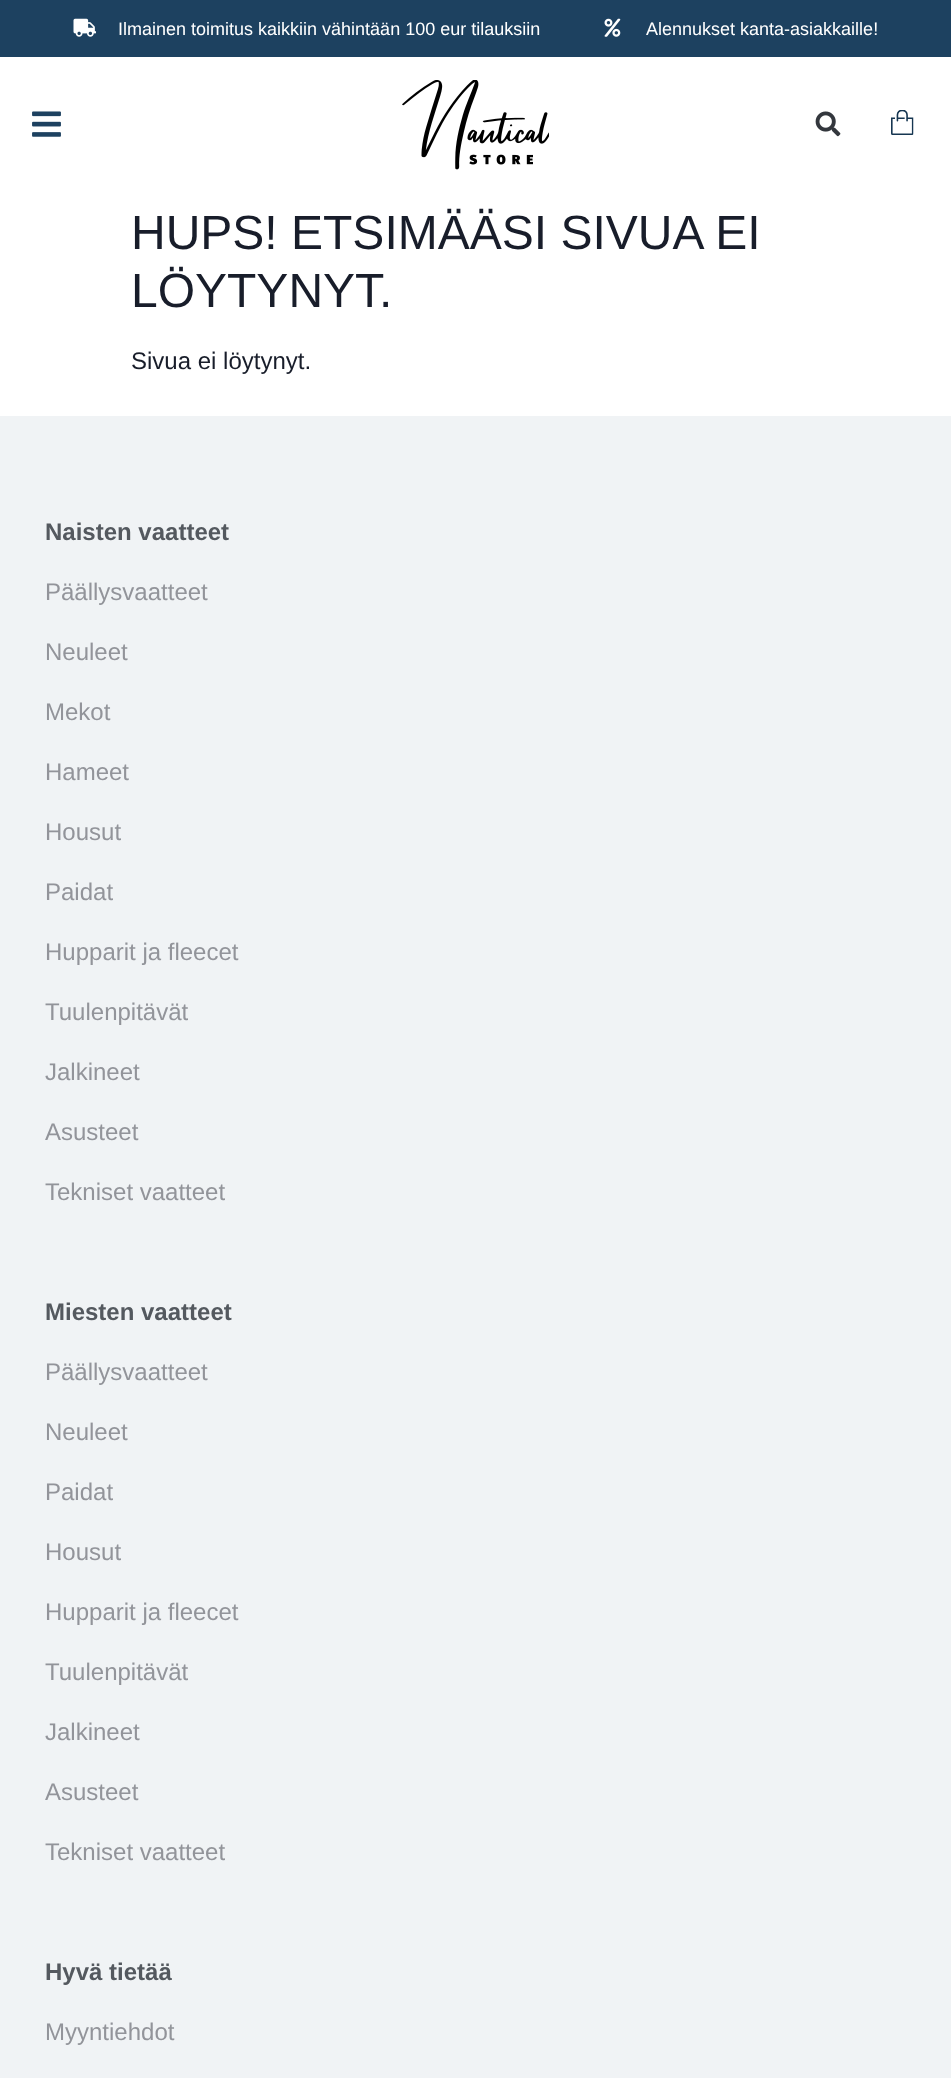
<?xml version="1.0" encoding="UTF-8"?>
<svg xmlns="http://www.w3.org/2000/svg" xmlns:xlink="http://www.w3.org/1999/xlink" width="951" height="2078">
  <rect width="100%" height="100%" fill="#ffffff" />
  <rect width="951" height="57" fill="#1d4160" />
  <image x="73" y="18" width="23" height="19" xlink:href="image1.png" />
  <image x="604" y="18" width="17" height="19" xlink:href="image2.png" />
  <image x="32" y="111" width="29" height="26" xlink:href="image3.png" />
  <image x="402" y="80" width="147" height="90" xlink:href="image4.png" />
  <image x="815" y="111" width="26" height="26" xlink:href="image5.png" />
  <image x="891" y="110" width="23" height="25" xlink:href="image6.png" />
  <rect y="416" width="951" height="1662" fill="#f0f3f5" />
  <text x="118" y="35" style="font-family: Liberation Sans; font-size: 18px; fill: #ffffff">Ilmainen toimitus kaikkiin vähintään 100 eur tilauksiin</text>
  <text x="646" y="35" style="font-family: Liberation Sans; font-size: 18px; fill: #ffffff">Alennukset kanta-asiakkaille!</text>
  <text x="131" y="249" style="font-family: Liberation Sans; font-size: 48px; fill: #181d2a">HUPS! ETSIMÄÄSI SIVUA EI</text>
  <text x="131" y="307" style="font-family: Liberation Sans; font-size: 48px; fill: #181d2a">LÖYTYNYT.</text>
  <text x="131" y="369" style="font-family: Liberation Sans; font-size: 24px; fill: #181d2a">Sivua ei löytynyt.</text>
  <text x="45" y="540" style="font-family: Liberation Sans; font-size: 24px; font-weight: bold; fill: #54595f">Naisten vaatteet</text>
  <text x="45" y="600" style="font-family: Liberation Sans; font-size: 24px; fill: #92949a">Päällysvaatteet</text>
  <text x="45" y="660" style="font-family: Liberation Sans; font-size: 24px; fill: #92949a">Neuleet</text>
  <text x="45" y="720" style="font-family: Liberation Sans; font-size: 24px; fill: #92949a">Mekot</text>
  <text x="45" y="780" style="font-family: Liberation Sans; font-size: 24px; fill: #92949a">Hameet</text>
  <text x="45" y="840" style="font-family: Liberation Sans; font-size: 24px; fill: #92949a">Housut</text>
  <text x="45" y="900" style="font-family: Liberation Sans; font-size: 24px; fill: #92949a">Paidat</text>
  <text x="45" y="960" style="font-family: Liberation Sans; font-size: 24px; fill: #92949a">Hupparit ja fleecet</text>
  <text x="45" y="1020" style="font-family: Liberation Sans; font-size: 24px; fill: #92949a">Tuulenpitävät</text>
  <text x="45" y="1080" style="font-family: Liberation Sans; font-size: 24px; fill: #92949a">Jalkineet</text>
  <text x="45" y="1140" style="font-family: Liberation Sans; font-size: 24px; fill: #92949a">Asusteet</text>
  <text x="45" y="1200" style="font-family: Liberation Sans; font-size: 24px; fill: #92949a">Tekniset vaatteet</text>
  <text x="45" y="1320" style="font-family: Liberation Sans; font-size: 24px; font-weight: bold; fill: #54595f">Miesten vaatteet</text>
  <text x="45" y="1380" style="font-family: Liberation Sans; font-size: 24px; fill: #92949a">Päällysvaatteet</text>
  <text x="45" y="1440" style="font-family: Liberation Sans; font-size: 24px; fill: #92949a">Neuleet</text>
  <text x="45" y="1500" style="font-family: Liberation Sans; font-size: 24px; fill: #92949a">Paidat</text>
  <text x="45" y="1560" style="font-family: Liberation Sans; font-size: 24px; fill: #92949a">Housut</text>
  <text x="45" y="1620" style="font-family: Liberation Sans; font-size: 24px; fill: #92949a">Hupparit ja fleecet</text>
  <text x="45" y="1680" style="font-family: Liberation Sans; font-size: 24px; fill: #92949a">Tuulenpitävät</text>
  <text x="45" y="1740" style="font-family: Liberation Sans; font-size: 24px; fill: #92949a">Jalkineet</text>
  <text x="45" y="1800" style="font-family: Liberation Sans; font-size: 24px; fill: #92949a">Asusteet</text>
  <text x="45" y="1860" style="font-family: Liberation Sans; font-size: 24px; fill: #92949a">Tekniset vaatteet</text>
  <text x="45" y="1980" style="font-family: Liberation Sans; font-size: 24px; font-weight: bold; fill: #54595f">Hyvä tietää</text>
  <text x="45" y="2040" style="font-family: Liberation Sans; font-size: 24px; fill: #92949a">Myyntiehdot</text>
</svg>
